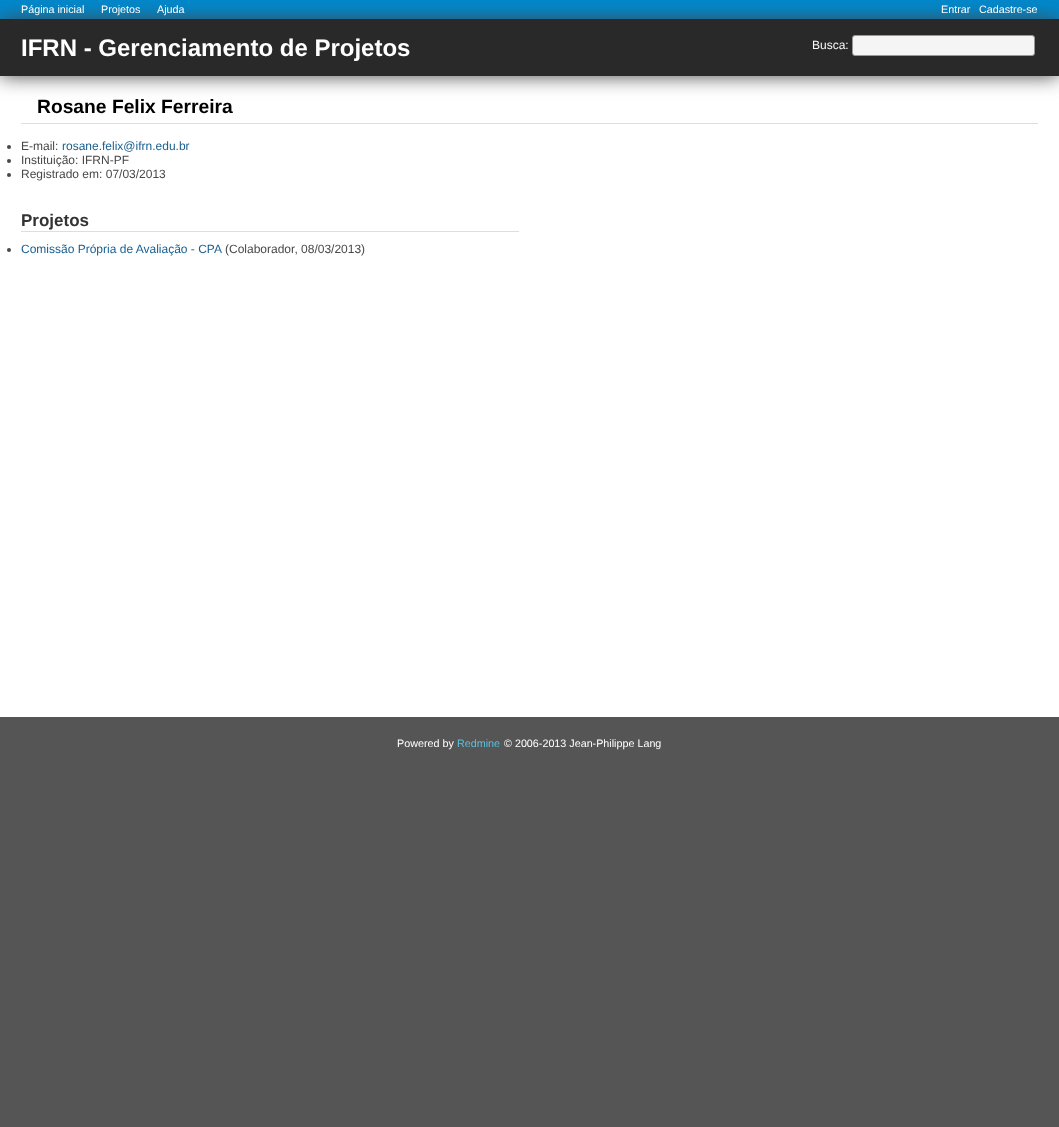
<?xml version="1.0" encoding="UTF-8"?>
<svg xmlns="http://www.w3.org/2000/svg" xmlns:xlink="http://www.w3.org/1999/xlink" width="1059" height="1127">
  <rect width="100%" height="100%" fill="#555555" />
  <rect y="76" width="1059" height="641" fill="#ffffff" />
  <rect width="1059" height="19" fill="#0088cc" />
  <rect y="19" width="1059" height="1" fill="#111111" />
  <rect y="20" width="1059" height="56" fill="#444444" filter="blur(10px)" />
  <rect y="20" width="1059" height="56" fill="#292929" />
  <rect x="852.5" y="35.5" width="182" height="20" rx="2.5" fill="#f5f5f5" stroke="#989898" />
  <rect x="21" y="123" width="1017" height="1" fill="#dedede" />
  <circle cx="9" cy="147" r="2" fill="#484848" />
  <circle cx="9" cy="161" r="2" fill="#484848" />
  <circle cx="9" cy="175" r="2" fill="#484848" />
  <rect x="21" y="231" width="498" height="1" fill="#dedede" />
  <circle cx="9" cy="250" r="2" fill="#484848" />
  <text x="21" y="13" style="font-family: Liberation Sans; font-size: 10.75px; fill: #ffffff">Página inicial</text>
  <text x="101" y="13" style="font-family: Liberation Sans; font-size: 10.75px; fill: #ffffff">Projetos</text>
  <text x="157" y="13" style="font-family: Liberation Sans; font-size: 10.75px; fill: #ffffff">Ajuda</text>
  <text x="941" y="13" style="font-family: Liberation Sans; font-size: 10.75px; fill: #ffffff">Entrar</text>
  <text x="979" y="13" style="font-family: Liberation Sans; font-size: 10.75px; fill: #ffffff">Cadastre-se</text>
  <text x="21" y="56" style="font-family: Liberation Sans; font-size: 24px; font-weight: bold; fill: #ffffff">IFRN - Gerenciamento de Projetos</text>
  <text x="812" y="49" style="font-family: Liberation Sans; font-size: 12px; fill: #f8f8f8">Busca:</text>
  <text x="37" y="113" style="font-family: Liberation Sans; font-size: 19.25px; font-weight: bold; fill: #000000">Rosane Felix Ferreira</text>
  <text x="21" y="150" style="font-family: Liberation Sans; font-size: 12px; fill: #484848">E-mail:</text>
  <text x="62" y="150" style="font-family: Liberation Sans; font-size: 12px; fill: #195f91">rosane.felix@ifrn.edu.br</text>
  <text x="21" y="164" style="font-family: Liberation Sans; font-size: 12px; fill: #484848">Instituição: IFRN-PF</text>
  <text x="21" y="178" style="font-family: Liberation Sans; font-size: 12px; fill: #484848">Registrado em: 07/03/2013</text>
  <text x="21" y="226" style="font-family: Liberation Sans; font-size: 17px; font-weight: bold; fill: #333333">Projetos</text>
  <text x="21" y="253" style="font-family: Liberation Sans; font-size: 12px; fill: #195f91">Comissão Própria de Avaliação - CPA</text>
  <text x="225" y="253" style="font-family: Liberation Sans; font-size: 12px; fill: #484848">(Colaborador, 08/03/2013)</text>
  <text x="397" y="747" style="font-family: Liberation Sans; font-size: 10.75px; fill: #ffffff">Powered by</text>
  <text x="457" y="747" style="font-family: Liberation Sans; font-size: 10.75px; fill: #5bc0de">Redmine</text>
  <text x="504" y="747" style="font-family: Liberation Sans; font-size: 10.75px; fill: #ffffff">© 2006-2013 Jean-Philippe Lang</text>
</svg>
